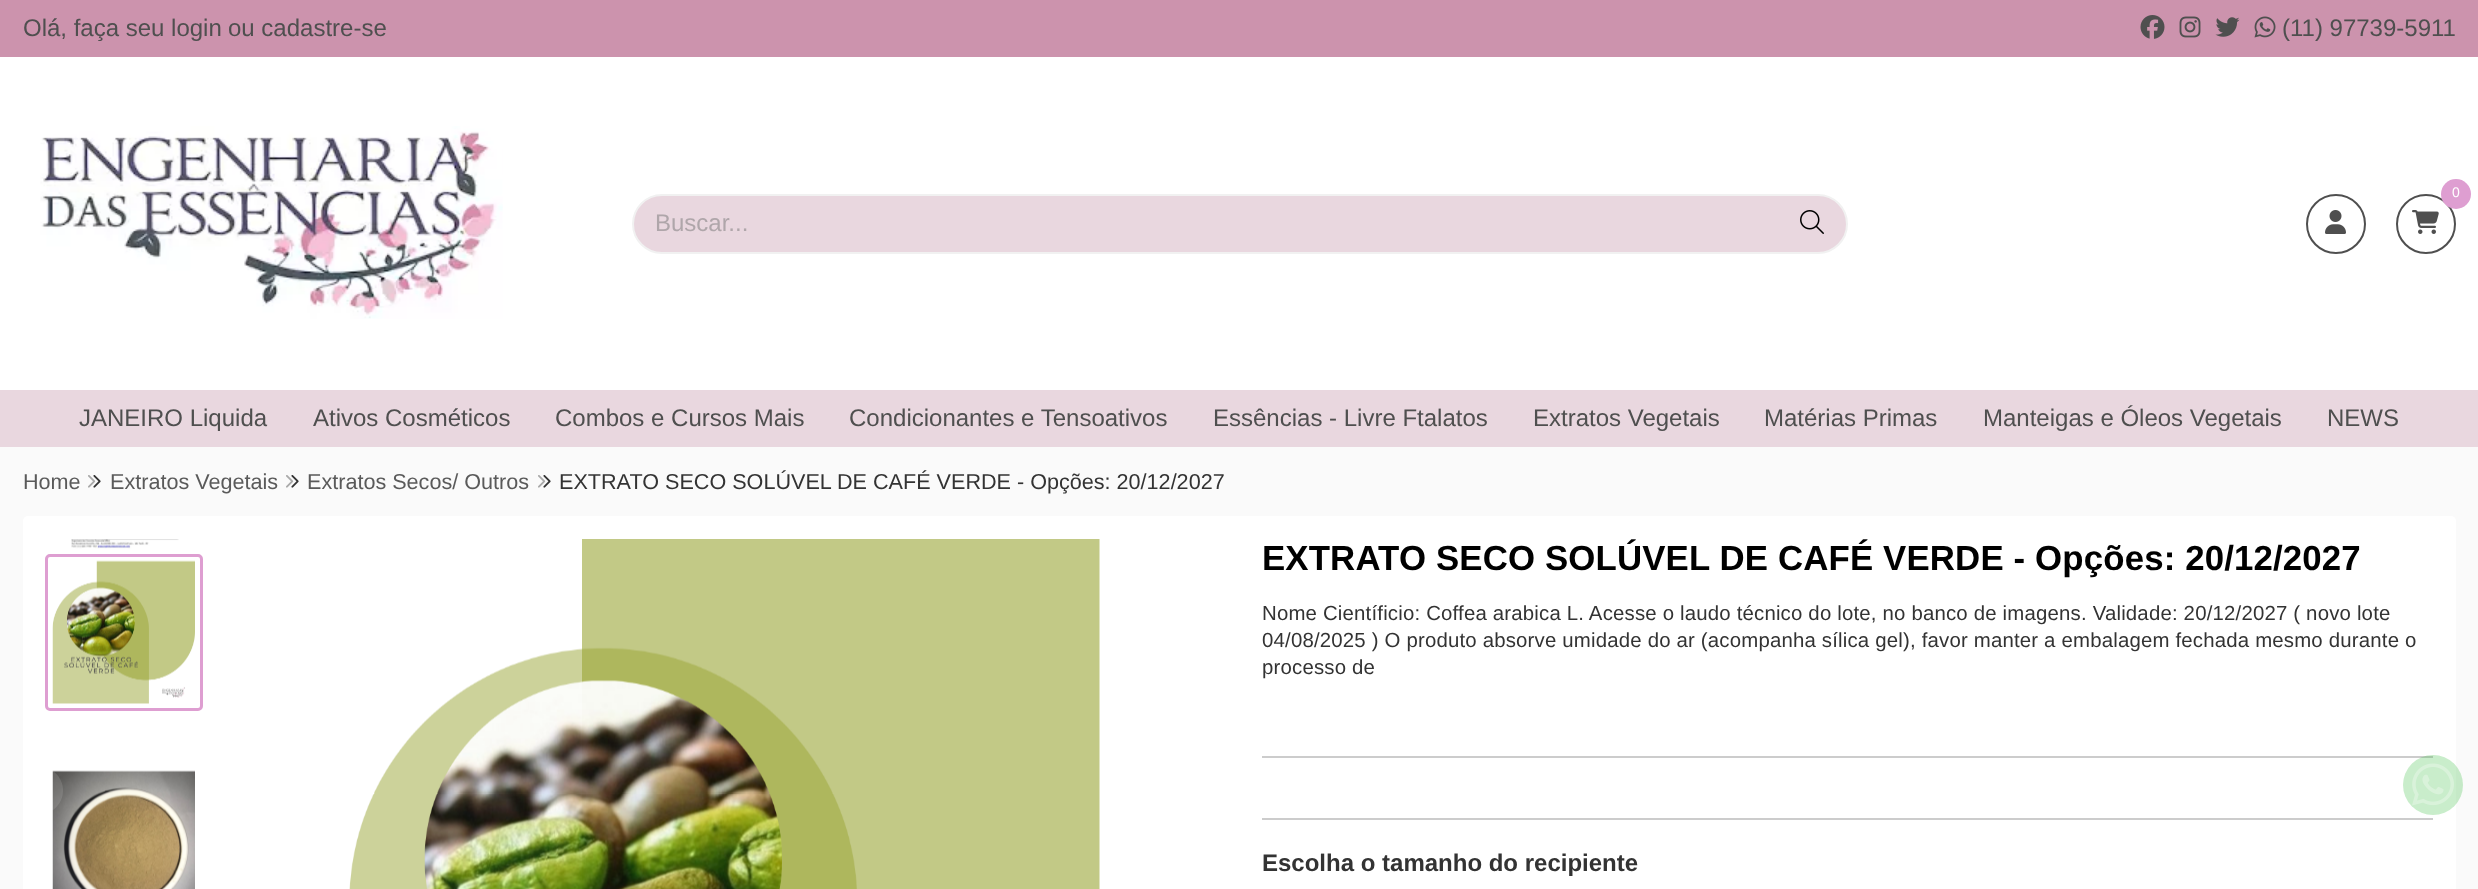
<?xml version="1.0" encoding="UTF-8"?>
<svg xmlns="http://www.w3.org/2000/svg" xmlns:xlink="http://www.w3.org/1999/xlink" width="2478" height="889">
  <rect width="100%" height="100%" fill="#fafafa" />
  <rect width="2478" height="57" fill="#cc93ad" />
  <image x="2140" y="15" width="25" height="24" xlink:href="image1.png" />
  <image x="2179" y="16" width="22" height="22" xlink:href="image2.png" />
  <image x="2215" y="17" width="25" height="20" xlink:href="image3.png" />
  <image x="2254" y="16" width="22" height="22" xlink:href="image4.png" />
  <rect y="57" width="2478" height="333" fill="#ffffff" />
  <image x="40" y="126" width="463" height="193" xlink:href="image5.png" />
  <circle cx="2426" cy="224" r="29" fill="none" stroke="#4f4f4f" stroke-width="2" />
  <circle cx="2456" cy="194" r="15" fill="#de9ed1" />
  <image x="2412" y="210" width="27" height="24" xlink:href="image6.png" />
  <circle cx="2336" cy="224" r="29" fill="none" stroke="#4f4f4f" stroke-width="2" />
  <image x="2325" y="210" width="21" height="24" xlink:href="image7.png" />
  <rect x="633" y="195" width="1214" height="58" rx="29" fill="#e9d7df" stroke="#f1f1f1" stroke-width="2" />
  <image x="1800" y="210" width="24" height="24" xlink:href="image8.png" />
  <rect y="390" width="2478" height="57" fill="#e9d7df" />
  <image x="88" y="475" width="13" height="13" xlink:href="image9.png" />
  <image x="286" y="475" width="13" height="13" xlink:href="image9.png" />
  <image x="538" y="475" width="13" height="13" xlink:href="image9.png" />
  <rect x="23" y="516" width="2433" height="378" rx="5" fill="#ffffff" />
  <image x="52" y="770" width="143" height="119" xlink:href="image13.png" />
  <image x="52" y="771" width="11" height="39" xlink:href="image10.png" />
  <image x="71" y="539" width="108" height="10" xlink:href="image11.png" />
  <rect x="46.5" y="555.5" width="155" height="154" rx="3.5" fill="none" stroke="#de9ed1" stroke-width="3" />
  <image x="52" y="560" width="143" height="144" xlink:href="image12.png" />
  <image x="349" y="539" width="751" height="350" xlink:href="image14.png" />
  <rect x="1262" y="756" width="1171" height="2" fill="#cccccc" />
  <rect x="1262" y="818" width="1171" height="2" fill="#cccccc" />
  <circle cx="2433" cy="785" r="30" fill="#4cc554" fill-opacity="0.3" />
  <image x="2412" y="763" width="42" height="43" xlink:href="image15.png" />
  <text x="23" y="36" style="font-family: Liberation Sans; font-size: 24px; fill: #4f4f4f">Olá, faça seu login</text>
  <text x="228" y="36" style="font-family: Liberation Sans; font-size: 24px; fill: #4f4f4f">ou cadastre-se</text>
  <text x="2282" y="36" style="font-family: Liberation Sans; font-size: 24px; fill: #4f4f4f">(11) 97739-5911</text>
  <text x="2452" y="197" style="font-family: Liberation Sans; font-size: 14px; fill: #ffffff">0</text>
  <text x="655" y="231" style="font-family: Liberation Sans; font-size: 24px; fill: #afa6aa">Buscar...</text>
  <text x="79" y="426" style="font-family: Liberation Sans; font-size: 24px; fill: #4f4f4f">JANEIRO Liquida</text>
  <text x="313" y="426" style="font-family: Liberation Sans; font-size: 24px; fill: #4f4f4f">Ativos Cosméticos</text>
  <text x="555" y="426" style="font-family: Liberation Sans; font-size: 24px; fill: #4f4f4f">Combos e Cursos Mais</text>
  <text x="849" y="426" style="font-family: Liberation Sans; font-size: 24px; fill: #4f4f4f">Condicionantes e Tensoativos</text>
  <text x="1213" y="426" style="font-family: Liberation Sans; font-size: 24px; fill: #4f4f4f">Essências - Livre Ftalatos</text>
  <text x="1533" y="426" style="font-family: Liberation Sans; font-size: 24px; fill: #4f4f4f">Extratos Vegetais</text>
  <text x="1764" y="426" style="font-family: Liberation Sans; font-size: 24px; fill: #4f4f4f">Matérias Primas</text>
  <text x="1983" y="426" style="font-family: Liberation Sans; font-size: 24px; fill: #4f4f4f">Manteigas e Óleos Vegetais</text>
  <text x="2327" y="426" style="font-family: Liberation Sans; font-size: 24px; fill: #4f4f4f">NEWS</text>
  <text x="23" y="489" style="font-family: Liberation Sans; font-size: 21.6px; fill: #5a5a5a">Home</text>
  <text x="110" y="489" style="font-family: Liberation Sans; font-size: 21.6px; fill: #5a5a5a">Extratos Vegetais</text>
  <text x="307" y="489" style="font-family: Liberation Sans; font-size: 21.6px; fill: #5a5a5a">Extratos Secos/ Outros</text>
  <text x="559" y="489" style="font-family: Liberation Sans; font-size: 21.6px; fill: #333333">EXTRATO SECO SOLÚVEL DE CAFÉ VERDE - Opções: 20/12/2027</text>
  <text x="1262" y="570" style="font-family: Liberation Sans; font-size: 34.8px; font-weight: bold; letter-spacing: 0.15px; fill: #000000">EXTRATO SECO SOLÚVEL DE CAFÉ VERDE - Opções: 20/12/2027</text>
  <text x="1262" y="620" style="font-family: Liberation Sans; font-size: 20.4px; letter-spacing: 0.18px; fill: #333333">Nome Científicio: Coffea arabica L. Acesse o laudo técnico do lote, no banco de imagens. Validade: 20/12/2027 ( novo lote</text>
  <text x="1262" y="647" style="font-family: Liberation Sans; font-size: 20.4px; letter-spacing: 0.18px; fill: #333333">04/08/2025 ) O produto absorve umidade do ar (acompanha sílica gel), favor manter a embalagem fechada mesmo durante o</text>
  <text x="1262" y="674" style="font-family: Liberation Sans; font-size: 20.4px; letter-spacing: 0.18px; fill: #333333">processo de</text>
  <text x="1262" y="871" style="font-family: Liberation Sans; font-size: 24px; font-weight: bold; fill: #333333">Escolha o tamanho do recipiente</text>
</svg>
